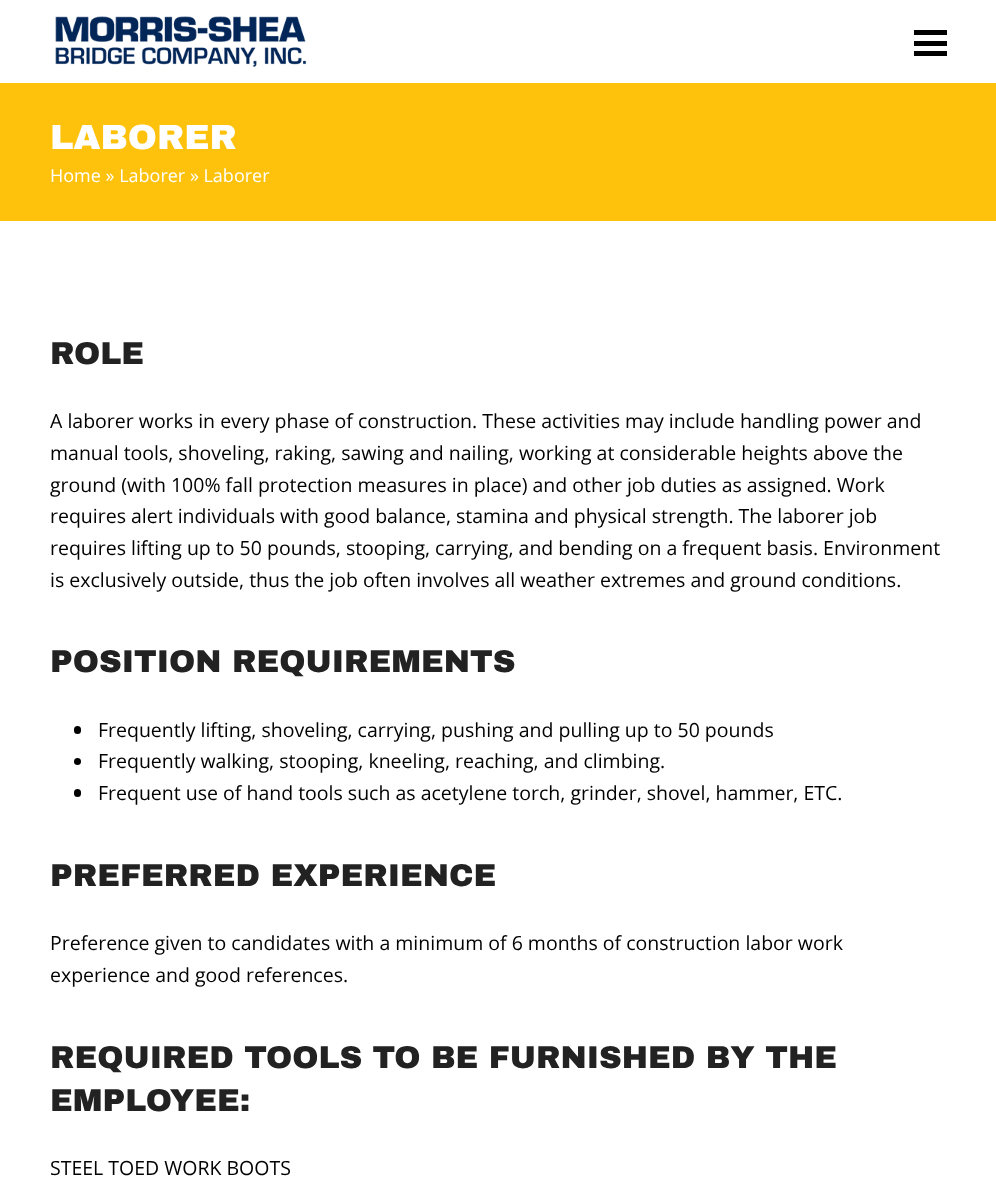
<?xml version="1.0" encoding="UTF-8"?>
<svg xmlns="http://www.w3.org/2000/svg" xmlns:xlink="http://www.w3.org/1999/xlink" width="996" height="1198">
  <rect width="100%" height="100%" fill="#ffffff" />
  <image x="55" y="16" width="251" height="51" xlink:href="image1.png" />
  <rect x="914" y="41" width="33" height="5" fill="#000000" />
  <rect x="914" y="30" width="33" height="5" fill="#000000" />
  <rect x="914" y="51" width="33" height="5" fill="#000000" />
  <rect y="83" width="996" height="138" fill="#ffc20c" />
  <rect x="74" y="726" width="7" height="8" rx="3.5" fill="#000000" />
  <circle cx="77.5" cy="761.5" r="3.5" fill="#000000" />
  <rect x="74" y="789" width="7" height="8" rx="3.5" fill="#000000" />
  <text x="50" y="149" style="font-family: Archivo Black; font-size: 35px; font-weight: 900; fill: #ffffff">LABORER</text>
  <text x="50" y="182" style="font-family: Open Sans; font-size: 18px; fill: #ffffff">Home » Laborer » Laborer</text>
  <text x="50" y="364" style="font-family: Archivo Black; font-size: 31.5px; font-weight: 900; fill: #222222">ROLE</text>
  <text x="50" y="428" style="font-family: Open Sans; font-size: 19.5px; fill: #000000">A laborer works in every phase of construction. These activities may include handling power and</text>
  <text x="50" y="460" style="font-family: Open Sans; font-size: 19.5px; fill: #000000">manual tools, shoveling, raking, sawing and nailing, working at considerable heights above the</text>
  <text x="50" y="492" style="font-family: Open Sans; font-size: 19.5px; fill: #000000">ground (with 100% fall protection measures in place) and other job duties as assigned. Work</text>
  <text x="50" y="523" style="font-family: Open Sans; font-size: 19.5px; fill: #000000">requires alert individuals with good balance, stamina and physical strength. The laborer job</text>
  <text x="50" y="555" style="font-family: Open Sans; font-size: 19.5px; fill: #000000">requires lifting up to 50 pounds, stooping, carrying, and bending on a frequent basis. Environment</text>
  <text x="50" y="587" style="font-family: Open Sans; font-size: 19.5px; fill: #000000">is exclusively outside, thus the job often involves all weather extremes and ground conditions.</text>
  <text x="50" y="672" style="font-family: Archivo Black; font-size: 31.5px; font-weight: 900; fill: #222222">POSITION REQUIREMENTS</text>
  <text x="98" y="737" style="font-family: Open Sans; font-size: 19.5px; fill: #000000">Frequently lifting, shoveling, carrying, pushing and pulling up to 50 pounds</text>
  <text x="98" y="768" style="font-family: Open Sans; font-size: 19.5px; fill: #000000">Frequently walking, stooping, kneeling, reaching, and climbing.</text>
  <text x="98" y="800" style="font-family: Open Sans; font-size: 19.5px; fill: #000000">Frequent use of hand tools such as acetylene torch, grinder, shovel, hammer, ETC.</text>
  <text x="50" y="886" style="font-family: Archivo Black; font-size: 31.5px; font-weight: 900; fill: #222222">PREFERRED EXPERIENCE</text>
  <text x="50" y="950" style="font-family: Open Sans; font-size: 19.5px; fill: #000000">Preference given to candidates with a minimum of 6 months of construction labor work</text>
  <text x="50" y="982" style="font-family: Open Sans; font-size: 19.5px; fill: #000000">experience and good references.</text>
  <text x="50" y="1068" style="font-family: Archivo Black; font-size: 31.5px; font-weight: 900; fill: #222222">REQUIRED TOOLS TO BE FURNISHED BY THE</text>
  <text x="50" y="1111" style="font-family: Archivo Black; font-size: 31.5px; font-weight: 900; fill: #222222">EMPLOYEE:</text>
  <text x="50" y="1175" style="font-family: Open Sans; font-size: 19.5px; fill: #000000">STEEL TOED WORK BOOTS</text>
</svg>
